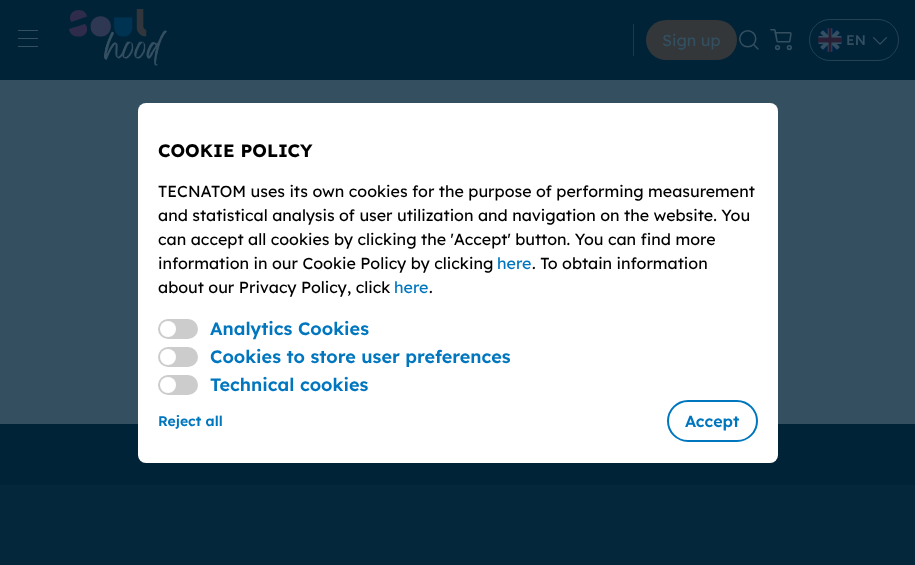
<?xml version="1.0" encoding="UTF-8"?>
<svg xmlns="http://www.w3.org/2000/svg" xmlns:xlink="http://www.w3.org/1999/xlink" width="915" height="565">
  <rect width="100%" height="100%" fill="#002338" />
  <rect x="18" y="30" width="20" height="1" fill="#334f60" />
  <rect x="18" y="38" width="20" height="1" fill="#334f60" />
  <rect x="18" y="46" width="20" height="1" fill="#334f60" />
  <image x="69" y="9" width="98" height="57" xlink:href="image1.png" />
  <rect x="633" y="24" width="1" height="32" fill="#1a394c" />
  <rect x="646" y="20" width="91" height="40" rx="20" fill="#333739" />
  <image x="739" y="30" width="20" height="20" xlink:href="image2.png" />
  <image x="770" y="29" width="22" height="22" xlink:href="image3.png" />
  <rect x="809.5" y="19.5" width="89" height="41" rx="20.5" fill="none" stroke="#244254" />
  <image x="818" y="28" width="24" height="24" xlink:href="image4.png" />
  <image x="872" y="37" width="16" height="8" xlink:href="image5.png" />
  <rect y="80" width="915" height="344" fill="#334f60" />
  <rect y="485" width="915" height="80" fill="#05273c" />
  <rect x="138" y="103" width="640" height="360" rx="8" fill="#ffffff" />
  <rect x="158" y="319" width="40" height="20" rx="10" fill="#cccccc" />
  <circle cx="168" cy="329" r="8" fill="#ffffff" />
  <rect x="158" y="347" width="40" height="20" rx="10" fill="#cccccc" />
  <circle cx="168" cy="357" r="8" fill="#ffffff" />
  <rect x="158" y="375" width="40" height="20" rx="10" fill="#cccccc" />
  <circle cx="168" cy="385" r="8" fill="#ffffff" />
  <rect x="668" y="401" width="89" height="40" rx="20" fill="none" stroke="#0076bf" stroke-width="2" />
  <text x="662" y="46" style="font-family: Lexend; font-size: 16px; fill: #334f60">Sign up</text>
  <text x="846" y="45" style="font-family: Lexend; font-size: 14px; font-weight: 500; fill: #334f60">EN</text>
  <text x="158" y="157" style="font-family: Lexend; font-size: 18px; font-weight: bold; fill: #000000">COOKIE POLICY</text>
  <text x="158" y="197" style="font-family: Lexend; font-size: 16px; fill: #000000">TECNATOM uses its own cookies for the purpose of performing measurement</text>
  <text x="158" y="221" style="font-family: Lexend; font-size: 16px; fill: #000000">and statistical analysis of user utilization and navigation on the website. You</text>
  <text x="158" y="245" style="font-family: Lexend; font-size: 16px; fill: #000000">can accept all cookies by clicking the 'Accept' button. You can find more</text>
  <text x="158" y="269" style="font-family: Lexend; font-size: 16px; fill: #000000">information in our Cookie Policy by clicking</text>
  <text x="497" y="269" style="font-family: Lexend; font-size: 16px; fill: #0076bf">here</text>
  <text x="532" y="269" style="font-family: Lexend; font-size: 16px; fill: #000000">. To obtain information</text>
  <text x="158" y="293" style="font-family: Lexend; font-size: 16px; fill: #000000">about our Privacy Policy, click</text>
  <text x="394" y="293" style="font-family: Lexend; font-size: 16px; fill: #0076bf">here</text>
  <text x="429" y="293" style="font-family: Lexend; font-size: 16px; fill: #000000">.</text>
  <text x="210" y="335" style="font-family: Lexend; font-size: 18px; font-weight: 600; fill: #0076bf">Analytics Cookies</text>
  <text x="210" y="363" style="font-family: Lexend; font-size: 18px; font-weight: 600; fill: #0076bf">Cookies to store user preferences</text>
  <text x="210" y="391" style="font-family: Lexend; font-size: 18px; font-weight: 600; fill: #0076bf">Technical cookies</text>
  <text x="158" y="426" style="font-family: Lexend; font-size: 14px; font-weight: 600; fill: #0076bf">Reject all</text>
  <text x="685" y="427" style="font-family: Lexend; font-size: 16px; font-weight: 600; fill: #0076bf">Accept</text>
</svg>
